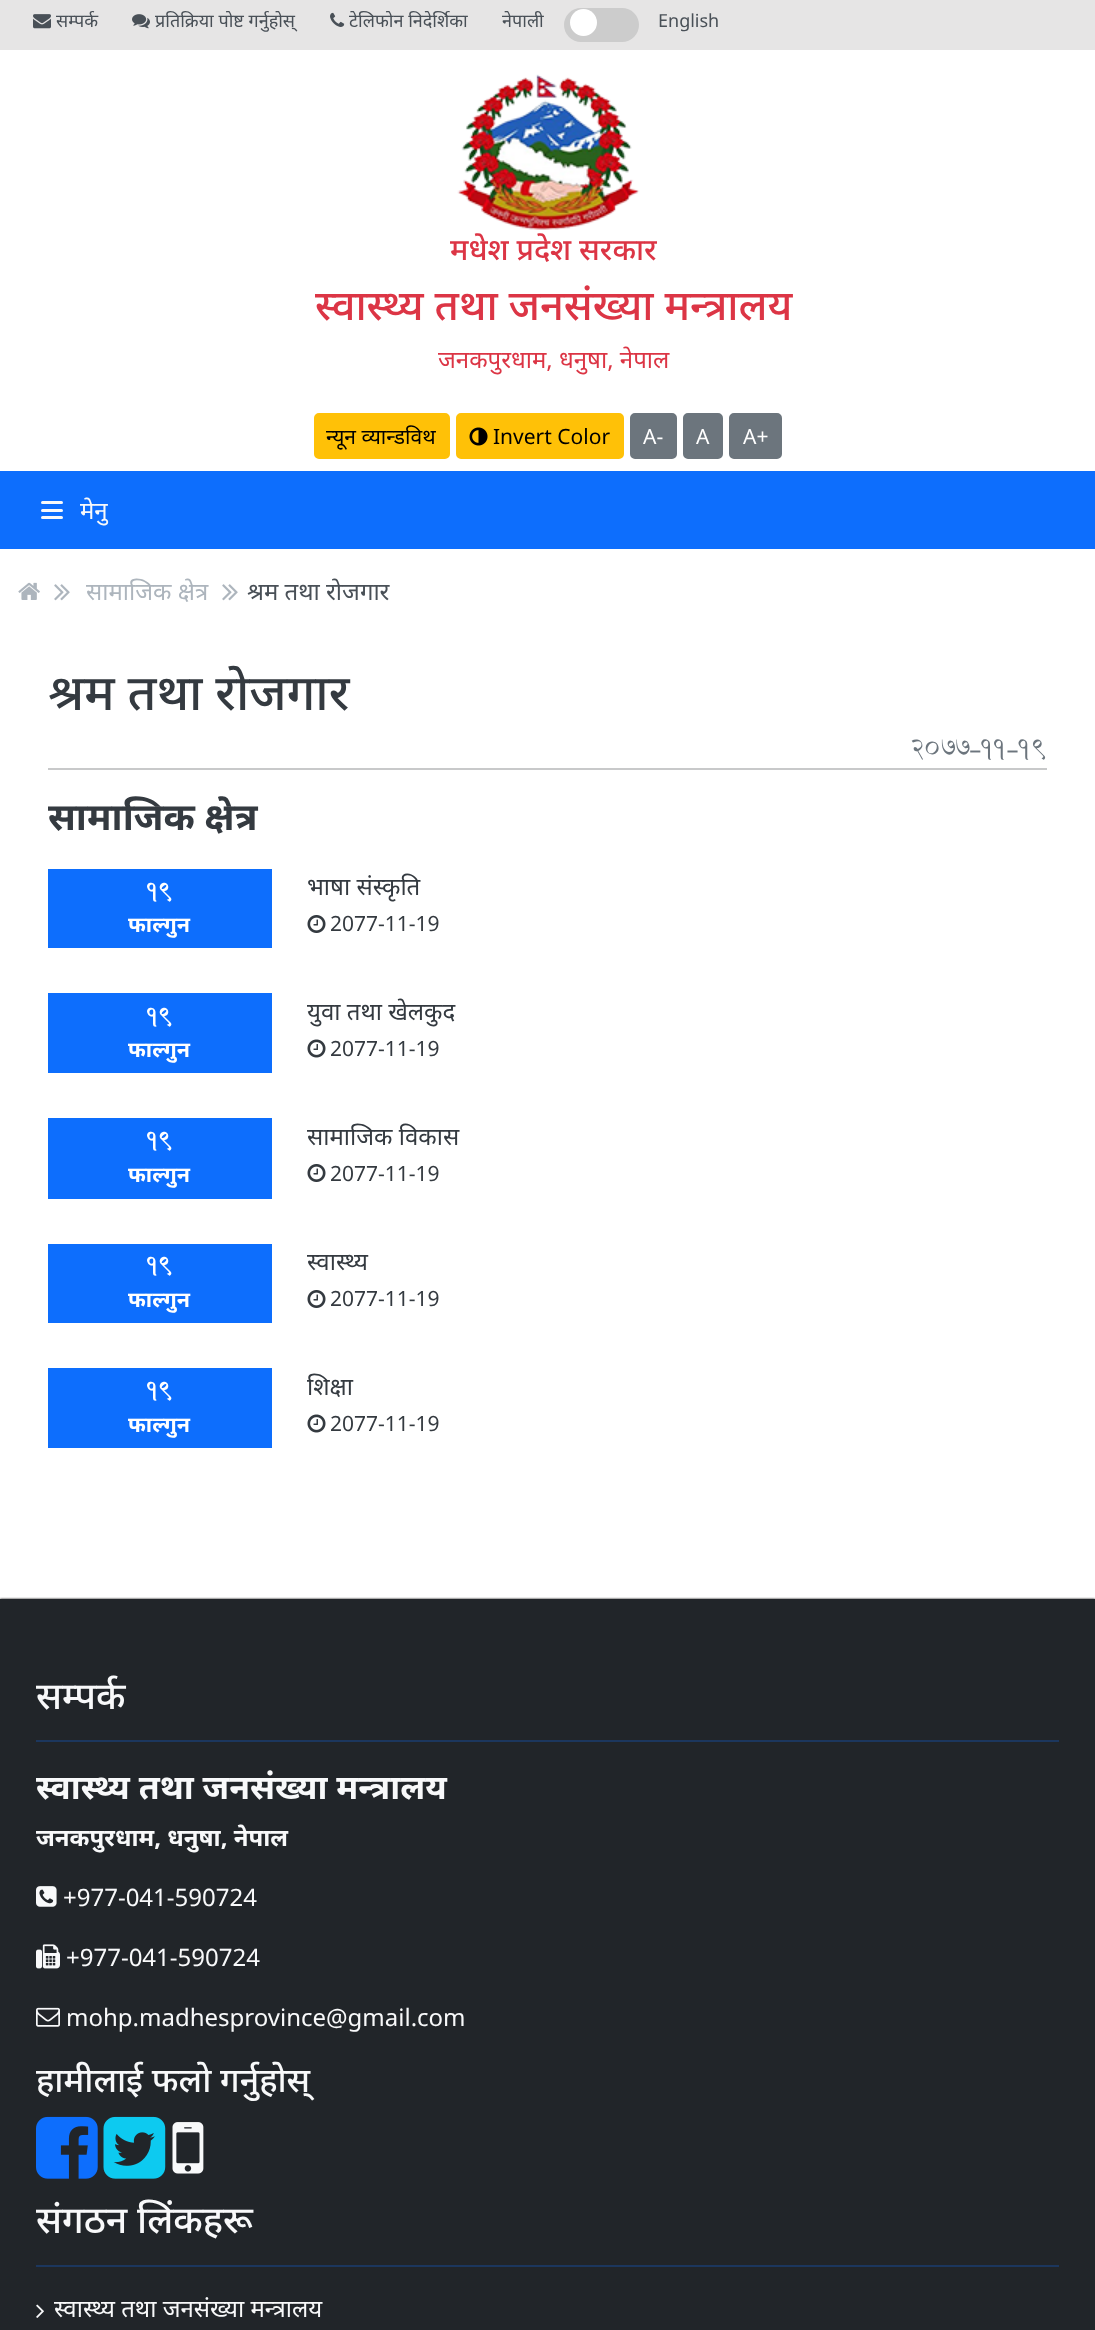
<?xml version="1.0" encoding="UTF-8"?>
<svg xmlns="http://www.w3.org/2000/svg" xmlns:xlink="http://www.w3.org/1999/xlink" width="1095" height="2330">
  <rect width="100%" height="100%" fill="#ffffff" />
  <rect width="1095" height="50" fill="#e6e5e5" />
  <image x="33" y="14" width="18" height="15" xlink:href="image1.png" />
  <image x="132" y="14" width="18" height="15" xlink:href="image2.png" />
  <image x="330" y="12" width="15" height="15" xlink:href="image3.png" />
  <rect x="564" y="8" width="75" height="34" rx="17" fill="#cccccc" />
  <circle cx="583.5" cy="22.5" r="13.5" fill="#ffffff" />
  <image x="457" y="74" width="183" height="156" xlink:href="image4.png" />
  <rect x="315" y="414" width="134" height="44" rx="4" fill="#ffc107" stroke="#ffc107" stroke-width="2" />
  <rect x="457" y="414" width="166" height="44" rx="4" fill="#ffc107" stroke="#ffc107" stroke-width="2" />
  <image x="469" y="427" width="19" height="19" xlink:href="image5.png" />
  <rect x="631" y="414" width="45" height="44" rx="4" fill="#6c757d" stroke="#6c757d" stroke-width="2" />
  <rect x="684" y="414" width="38" height="44" rx="4" fill="#6c757d" stroke="#6c757d" stroke-width="2" />
  <rect x="730" y="414" width="51" height="44" rx="4" fill="#6c757d" stroke="#6c757d" stroke-width="2" />
  <rect y="471" width="1095" height="78" fill="#0d6efd" />
  <rect x="41" y="501" width="22" height="3" rx="1.5" fill="#f8f9fa" />
  <rect x="41" y="509" width="22" height="3" rx="1.5" fill="#f8f9fa" />
  <rect x="41" y="516" width="22" height="3" rx="1.5" fill="#f8f9fa" />
  <image x="18" y="582" width="22" height="18" xlink:href="image6.png" />
  <image x="54" y="584" width="16" height="17" xlink:href="image7.png" />
  <image x="222" y="584" width="16" height="17" xlink:href="image7.png" />
  <rect x="48" y="768" width="999" height="2" fill="#c8c9ca" />
  <rect x="48" y="869" width="224" height="79" fill="#0d6efd" />
  <image x="307" y="915" width="19" height="18" xlink:href="image8.png" />
  <rect x="48" y="993" width="224" height="80" fill="#0d6efd" />
  <image x="307" y="1039" width="19" height="19" xlink:href="image9.png" />
  <rect x="48" y="1118" width="224" height="81" fill="#0d6efd" />
  <image x="307" y="1164" width="19" height="18" xlink:href="image8.png" />
  <rect x="48" y="1244" width="224" height="79" fill="#0d6efd" />
  <image x="307" y="1290" width="19" height="18" xlink:href="image8.png" />
  <rect x="48" y="1368" width="224" height="80" fill="#0d6efd" />
  <image x="307" y="1414" width="19" height="19" xlink:href="image9.png" />
  <rect y="1599" width="1095" height="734" fill="#000000" filter="blur(1px)" />
  <rect y="1599" width="1095" height="731" fill="#212529" />
  <rect x="36" y="1740" width="1023" height="2" fill="#1c375e" />
  <image x="36" y="1886" width="21" height="21" xlink:href="image10.png" />
  <image x="36" y="1944" width="24" height="25" xlink:href="image11.png" />
  <image x="36" y="2007" width="24" height="20" xlink:href="image12.png" />
  <image x="36" y="2116" width="62" height="63" xlink:href="image13.png" />
  <image x="103" y="2116" width="63" height="63" xlink:href="image14.png" />
  <image x="172" y="2122" width="32" height="52" xlink:href="image15.png" />
  <rect x="36" y="2265" width="1023" height="2" fill="#1c375e" />
  <image x="36" y="2304" width="8" height="14" xlink:href="image16.png" />
  <text x="56" y="27" style="font-family: Noto Sans; font-size: 18px; fill: #495057">सम्पर्क</text>
  <text x="155" y="27" style="font-family: Noto Sans; font-size: 18px; fill: #495057">प्रतिक्रिया पोष्ट गर्नुहोस्</text>
  <text x="349" y="27" style="font-family: Noto Sans; font-size: 18px; fill: #495057">टेलिफोन निदेर्शिका</text>
  <text x="502" y="27" style="font-family: Noto Sans; font-size: 18px; fill: #495057">नेपाली</text>
  <text x="658" y="27" style="font-family: Noto Sans; font-size: 18px; fill: #495057">English</text>
  <text x="450" y="260" style="font-family: Noto Sans; font-size: 30px; font-weight: 500; fill: #dc3545">मधेश प्रदेश सरकार</text>
  <text x="315" y="320" style="font-family: Noto Sans; font-size: 41.7px; font-weight: 500; fill: #dc3545">स्वास्थ्य तथा जनसंख्या मन्त्रालय</text>
  <text x="438" y="368" style="font-family: Noto Sans; font-size: 24px; fill: #dc3545">जनकपुरधाम, धनुषा, नेपाल</text>
  <text x="326" y="444" style="font-family: Noto Sans; font-size: 21px; fill: #000000">न्यून व्यान्डविथ</text>
  <text x="493" y="444" style="font-family: Noto Sans; font-size: 21px; fill: #000000">Invert Color</text>
  <text x="643" y="444" style="font-family: Noto Sans; font-size: 21px; fill: #ffffff">A-</text>
  <text x="696" y="444" style="font-family: Noto Sans; font-size: 21px; fill: #ffffff">A</text>
  <text x="743" y="444" style="font-family: Noto Sans; font-size: 21px; fill: #ffffff">A+</text>
  <text x="80" y="519" style="font-family: Noto Sans; font-size: 24px; fill: #f8f9fa">मेनु</text>
  <text x="86" y="600" style="font-family: Noto Sans; font-size: 24px; fill: #adb5bd">सामाजिक क्षेत्र</text>
  <text x="247" y="600" style="font-family: Noto Sans; font-size: 24px; fill: #495057">श्रम तथा रोजगार</text>
  <text x="48" y="710" style="font-family: Noto Sans; font-size: 49.5px; font-weight: 500; fill: #343a40">श्रम तथा रोजगार</text>
  <text x="910" y="758" style="font-family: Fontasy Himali; font-size: 24px; fill: #6c757d">2077-11-19</text>
  <text x="48" y="830" style="font-family: Noto Sans; font-size: 37.75px; font-weight: bold; fill: #343a40">सामाजिक क्षेत्र</text>
  <text x="147" y="900" style="font-family: Fontasy Himali; font-size: 21.5px; font-weight: bold; fill: #ffffff">19</text>
  <text x="128" y="932" style="font-family: Noto Sans; font-size: 21.5px; font-weight: bold; fill: #ffffff">फाल्गुन</text>
  <text x="307" y="895" style="font-family: Noto Sans; font-size: 24px; fill: #343a40">भाषा संस्कृति</text>
  <text x="330" y="931" style="font-family: Noto Sans; font-size: 21px; fill: #343a40">2077-11-19</text>
  <text x="147" y="1025" style="font-family: Fontasy Himali; font-size: 21.5px; font-weight: bold; fill: #ffffff">19</text>
  <text x="128" y="1057" style="font-family: Noto Sans; font-size: 21.5px; font-weight: bold; fill: #ffffff">फाल्गुन</text>
  <text x="307" y="1020" style="font-family: Noto Sans; font-size: 24px; fill: #343a40">युवा तथा खेलकुद</text>
  <text x="330" y="1056" style="font-family: Noto Sans; font-size: 21px; fill: #343a40">2077-11-19</text>
  <text x="147" y="1149" style="font-family: Fontasy Himali; font-size: 21.5px; font-weight: bold; fill: #ffffff">19</text>
  <text x="128" y="1182" style="font-family: Noto Sans; font-size: 21.5px; font-weight: bold; fill: #ffffff">फाल्गुन</text>
  <text x="307" y="1145" style="font-family: Noto Sans; font-size: 24px; fill: #343a40">सामाजिक विकास</text>
  <text x="330" y="1181" style="font-family: Noto Sans; font-size: 21px; fill: #343a40">2077-11-19</text>
  <text x="147" y="1274" style="font-family: Fontasy Himali; font-size: 21.5px; font-weight: bold; fill: #ffffff">19</text>
  <text x="128" y="1307" style="font-family: Noto Sans; font-size: 21.5px; font-weight: bold; fill: #ffffff">फाल्गुन</text>
  <text x="307" y="1270" style="font-family: Noto Sans; font-size: 24px; fill: #343a40">स्वास्थ्य</text>
  <text x="330" y="1306" style="font-family: Noto Sans; font-size: 21px; fill: #343a40">2077-11-19</text>
  <text x="147" y="1399" style="font-family: Fontasy Himali; font-size: 21.5px; font-weight: bold; fill: #ffffff">19</text>
  <text x="128" y="1432" style="font-family: Noto Sans; font-size: 21.5px; font-weight: bold; fill: #ffffff">फाल्गुन</text>
  <text x="307" y="1395" style="font-family: Noto Sans; font-size: 24px; fill: #343a40">शिक्षा</text>
  <text x="330" y="1431" style="font-family: Noto Sans; font-size: 21px; fill: #343a40">2077-11-19</text>
  <text x="36" y="1709" style="font-family: Noto Sans; font-size: 37.5px; font-weight: 500; fill: #f8f9fa">सम्पर्क</text>
  <text x="36" y="1799" style="font-family: Noto Sans; font-size: 33.9px; font-weight: bold; fill: #f8f9fa">स्वास्थ्य तथा जनसंख्या मन्त्रालय</text>
  <text x="36" y="1846" style="font-family: Noto Sans; font-size: 24px; font-weight: bold; fill: #f8f9fa">जनकपुरधाम, धनुषा, नेपाल</text>
  <text x="63" y="1906" style="font-family: Noto Sans; font-size: 24px; fill: #f8f9fa">+977-041-590724</text>
  <text x="66" y="1966" style="font-family: Noto Sans; font-size: 24px; fill: #f8f9fa">+977-041-590724</text>
  <text x="66" y="2026" style="font-family: Noto Sans; font-size: 24px; fill: #f8f9fa">mohp.madhesprovince@gmail.com</text>
  <text x="36" y="2092" style="font-family: Noto Sans; font-size: 33.9px; font-weight: 500; fill: #f8f9fa">हामीलाई फलो गर्नुहोस्</text>
  <text x="36" y="2233" style="font-family: Noto Sans; font-size: 37.5px; font-weight: 500; fill: #f8f9fa">संगठन लिंकहरू</text>
  <text x="54" y="2317" style="font-family: Noto Sans; font-size: 24px; fill: #f8f9fa">स्वास्थ्य तथा जनसंख्या मन्त्रालय</text>
</svg>
